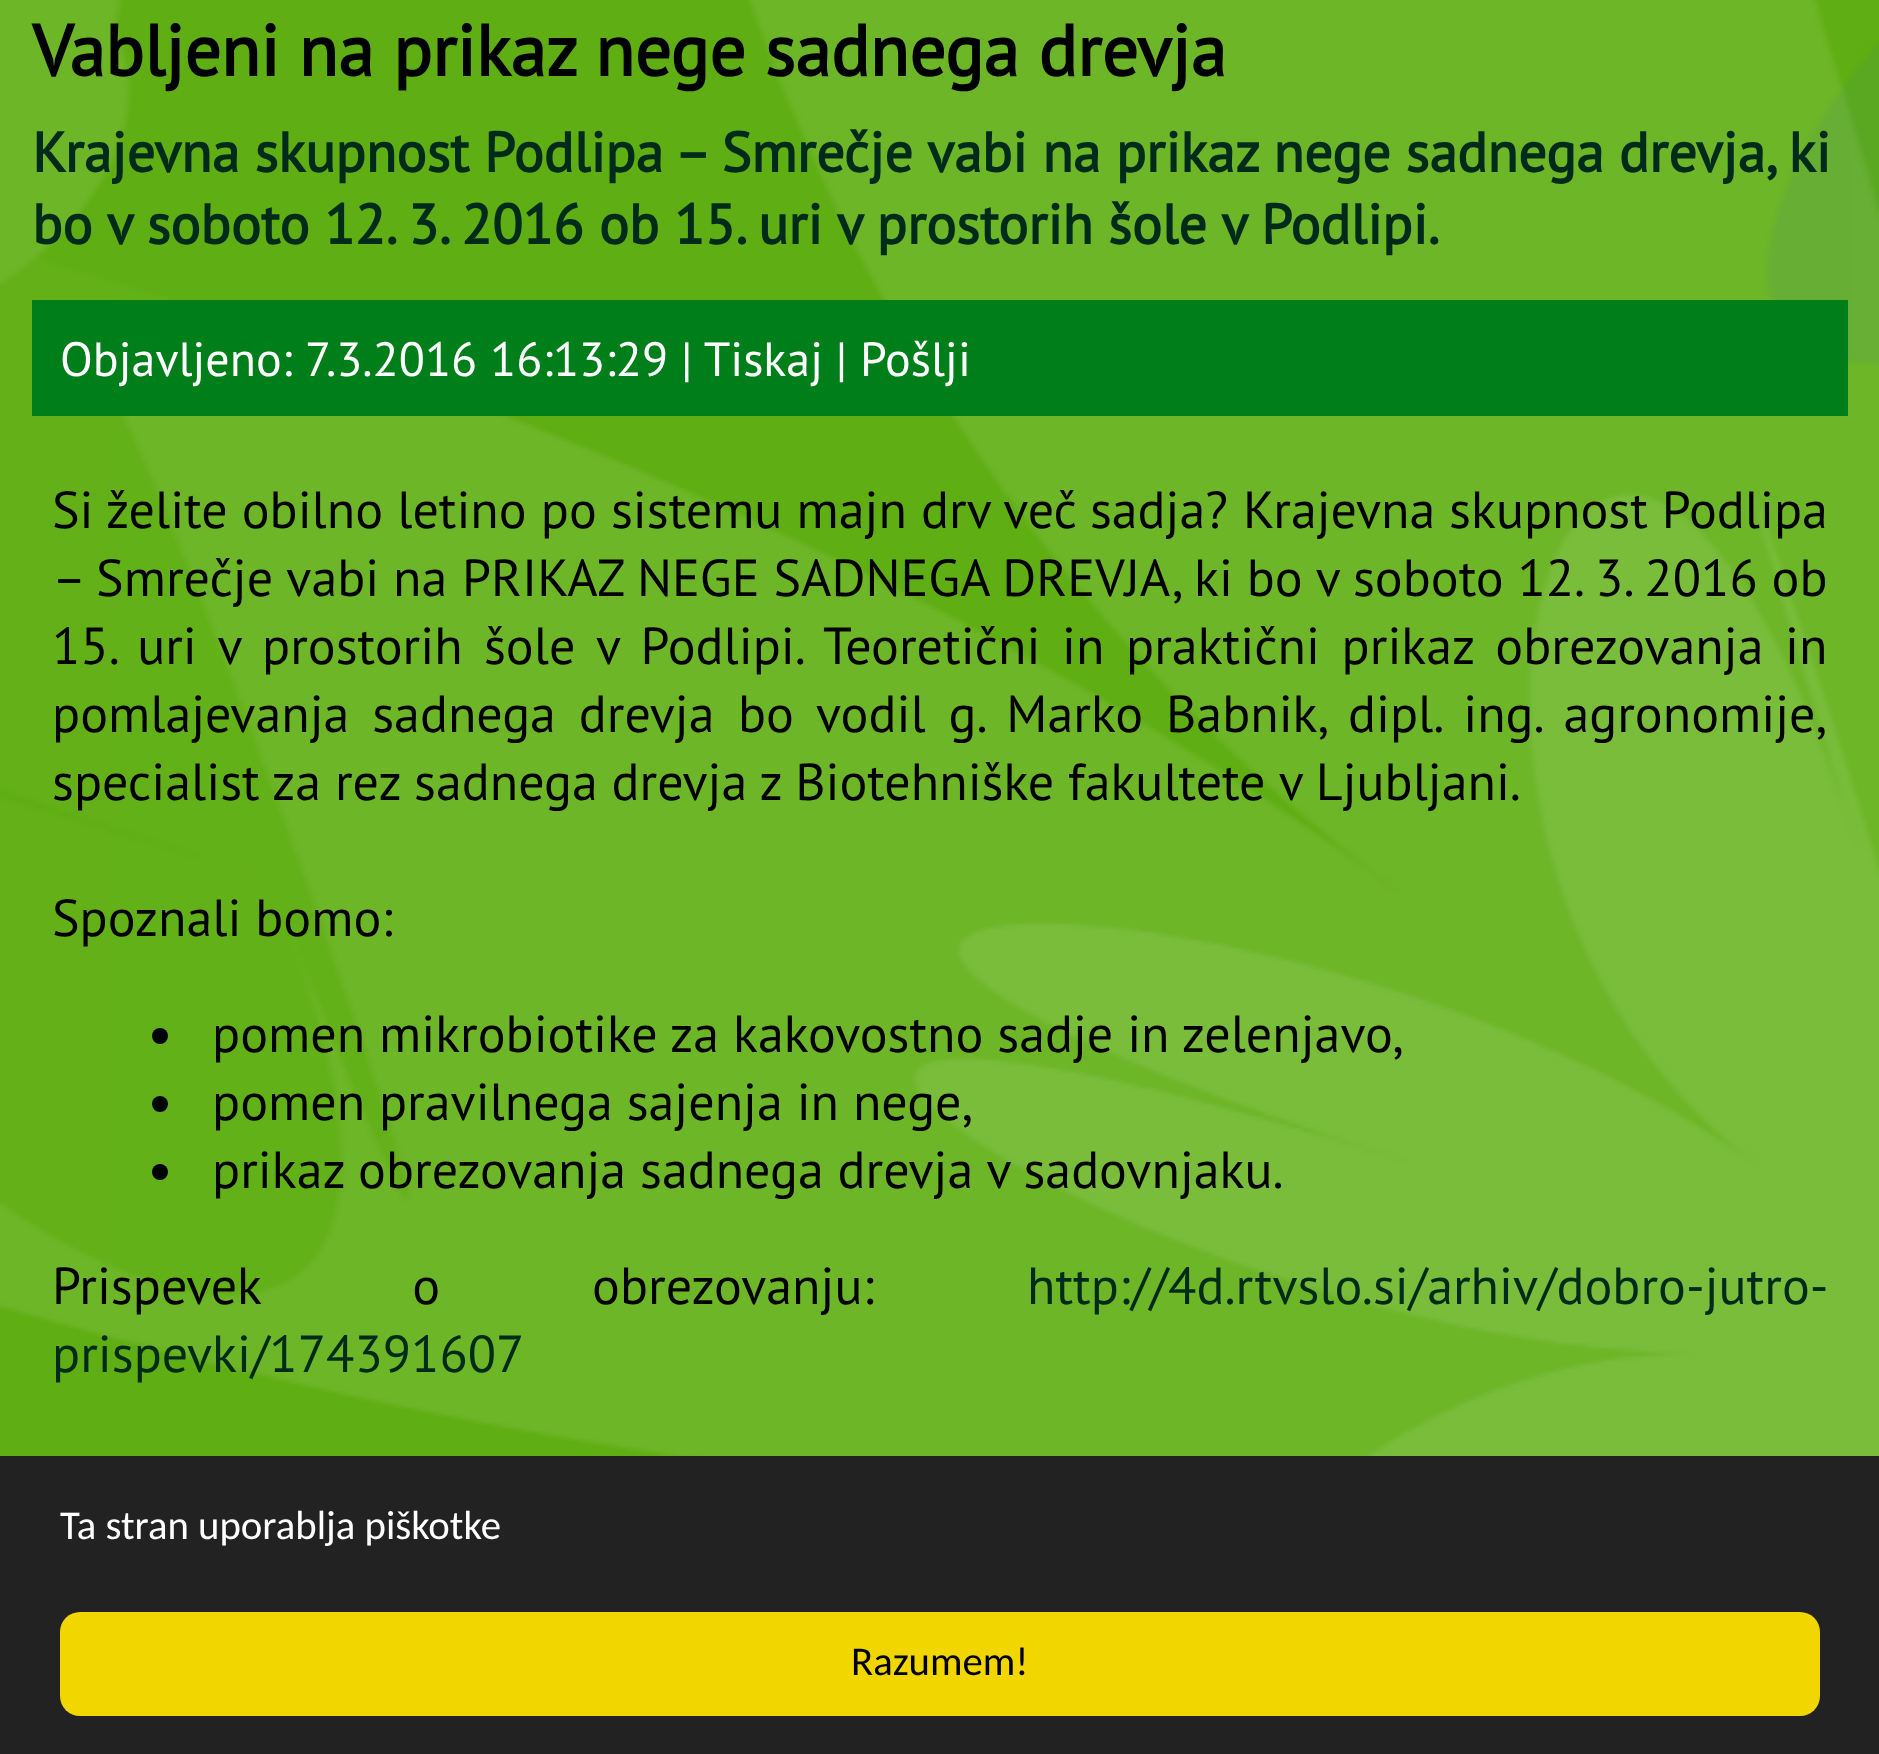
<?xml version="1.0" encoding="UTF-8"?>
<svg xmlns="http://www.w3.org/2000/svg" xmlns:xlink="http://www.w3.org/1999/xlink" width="1879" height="1754">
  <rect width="100%" height="100%" fill="#ffffff" />
  <image x="0" y="0" width="1879" height="1456" xlink:href="image1.png" />
  <rect x="32" y="300" width="1816" height="116" fill="#007e1a" />
  <circle cx="160" cy="1036" r="8" fill="#000000" />
  <circle cx="160" cy="1104" r="8" fill="#000000" />
  <circle cx="160" cy="1172" r="8" fill="#000000" />
  <rect y="1456" width="1879" height="298" fill="#222222" />
  <rect x="60" y="1612" width="1760" height="104" rx="20" fill="#f1d600" />
  <text x="32" y="76" style="font-family: PT Sans; font-size: 72px; font-weight: bold; fill: #000000">Vabljeni na prikaz nege sadnega drevja</text>
  <text x="32" y="172" style="font-family: PT Sans; font-size: 56.15px; font-weight: bold; fill: #002a1a">Krajevna skupnost Podlipa – Smrečje vabi na prikaz nege sadnega drevja, ki</text>
  <text x="32" y="244" style="font-family: PT Sans; font-size: 56.15px; font-weight: bold; fill: #002a1a">bo v soboto 12. 3. 2016 ob 15. uri v prostorih šole v Podlipi.</text>
  <text x="60" y="376" style="font-family: PT Sans; font-size: 48px; fill: #ffffff">Objavljeno: 7.3.2016 16:13:29 | Tiskaj | Pošlji</text>
  <text x="52" y="528" word-spacing="0.25" style="font-family: PT Sans; font-size: 52px; fill: #000000">Si želite obilno letino po sistemu majn drv več sadja?</text>
  <text x="1243" y="528" style="font-family: PT Sans; font-size: 52px; fill: #000000">Krajevna skupnost Podlipa</text>
  <text x="52" y="596" style="font-family: PT Sans; font-size: 52px; fill: #000000">– Smrečje vabi na</text>
  <text x="462" y="596" style="font-family: PT Sans; font-size: 52px; fill: #000000">PRIKAZ NEGE SADNEGA DREVJA,</text>
  <text x="1194" y="596" style="font-family: PT Sans; font-size: 52px; fill: #000000">ki bo v soboto 12. 3. 2016 ob</text>
  <text x="52" y="664" word-spacing="7.5" style="font-family: PT Sans; font-size: 52px; fill: #000000">15. uri v prostorih šole v Podlipi.</text>
  <text x="823" y="664" word-spacing="7.75" style="font-family: PT Sans; font-size: 52px; fill: #000000">Teoretični in praktični prikaz obrezovanja in</text>
  <text x="52" y="732" word-spacing="9" style="font-family: PT Sans; font-size: 52px; fill: #000000">pomlajevanja sadnega drevja</text>
  <text x="738" y="732" word-spacing="9" style="font-family: PT Sans; font-size: 52px; fill: #000000">bo vodil g. Marko Babnik, dipl. ing. agronomije,</text>
  <text x="52" y="800" style="font-family: PT Sans; font-size: 52px; fill: #000000">specialist za rez sadnega drevja z Biotehniške fakultete v Ljubljani.</text>
  <text x="52" y="936" style="font-family: PT Sans; font-size: 52px; fill: #000000">Spoznali bomo:</text>
  <text x="212" y="1052" style="font-family: PT Sans; font-size: 52px; fill: #000000">pomen mikrobiotike za kakovostno sadje in zelenjavo,</text>
  <text x="212" y="1120" style="font-family: PT Sans; font-size: 52px; fill: #000000">pomen pravilnega sajenja in nege,</text>
  <text x="212" y="1188" style="font-family: PT Sans; font-size: 52px; fill: #000000">prikaz obrezovanja sadnega drevja v sadovnjaku.</text>
  <text x="52" y="1304" word-spacing="138" style="font-family: PT Sans; font-size: 52px; fill: #000000">Prispevek o obrezovanju:</text>
  <text x="1027" y="1304" style="font-family: PT Sans; font-size: 52px; fill: #002a1a">http://4d.rtvslo.si/arhiv/dobro-jutro-</text>
  <text x="52" y="1372" style="font-family: PT Sans; font-size: 52px; fill: #002a1a">prispevki/174391607</text>
  <text x="60" y="1539" style="font-family: Carlito; font-size: 40.75px; fill: #ffffff">Ta stran uporablja piškotke</text>
  <text x="851" y="1675" style="font-family: Carlito; font-size: 40.75px; fill: #000000">Razumem!</text>
</svg>
